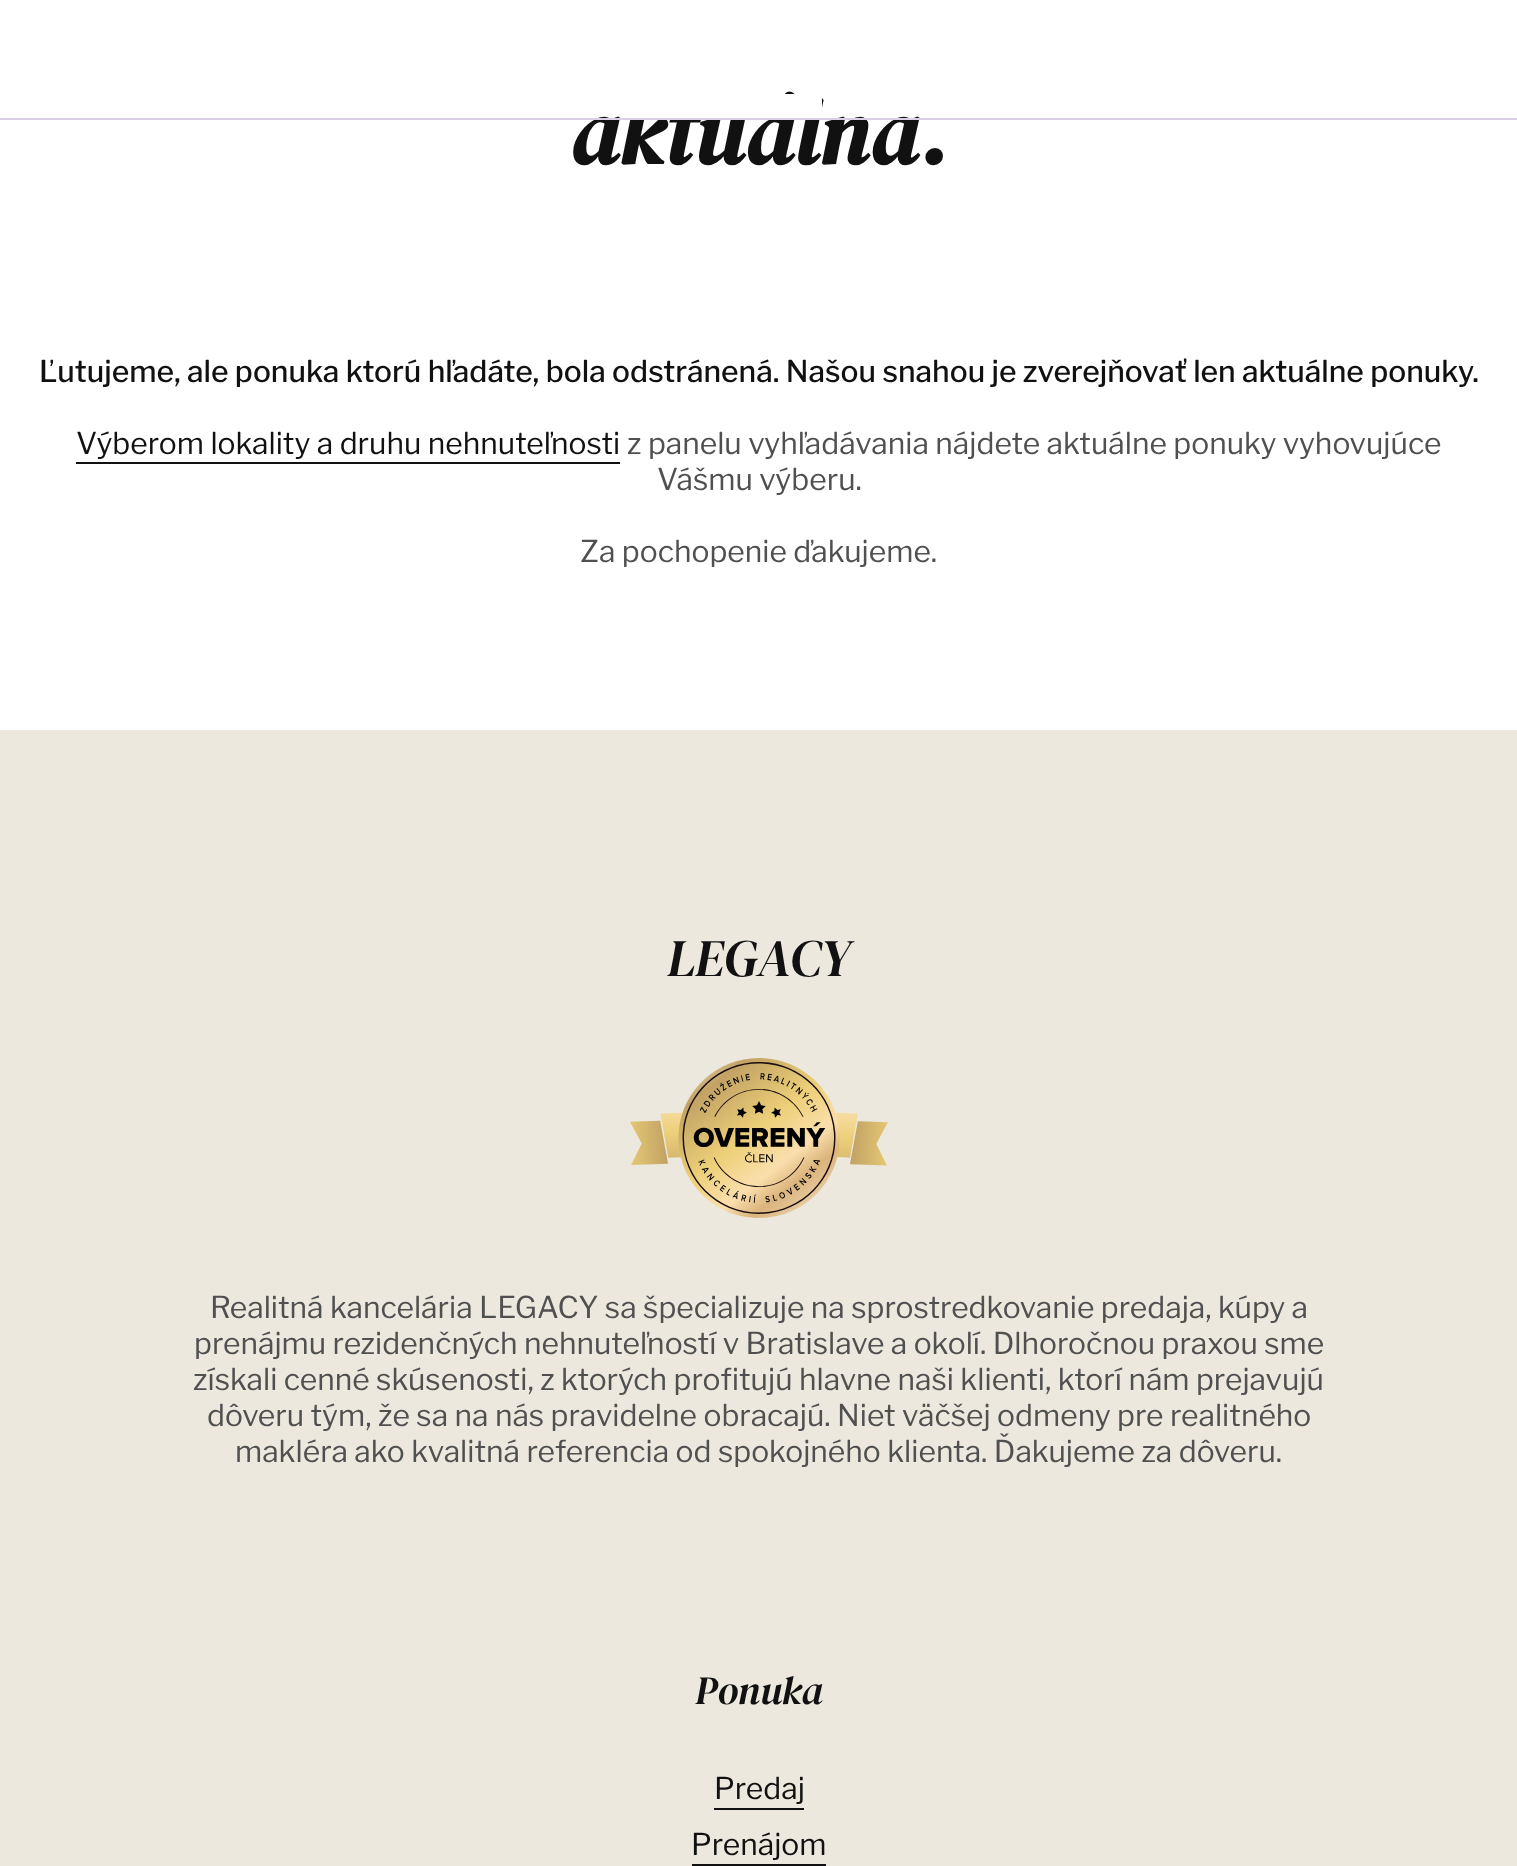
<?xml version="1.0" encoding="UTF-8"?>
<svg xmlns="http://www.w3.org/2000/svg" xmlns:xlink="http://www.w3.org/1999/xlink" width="1517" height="1866">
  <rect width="100%" height="100%" fill="#ffffff" />
  <rect x="76" y="462" width="544" height="2" fill="#111111" />
  <rect y="730" width="1517" height="1136" fill="#ece8de" />
  <image x="630" y="1058" width="258" height="160" xlink:href="image1.png" />
  <rect x="714" y="1808" width="90" height="2" fill="#111111" />
  <rect x="692" y="1864" width="134" height="2" fill="#111111" />
  <text x="569" y="164" style="font-family: DM Serif Display; font-size: 90px; font-weight: bold; font-style: italic; fill: #111111">aktuálna.</text>
  <rect y="118" width="1517" height="2" fill="#d9cfe6" />
  <rect x="627" y="94" width="195" height="24" fill="#ffffff" />
  <text x="39" y="382" style="font-family: Libre Franklin; font-size: 30px; font-weight: 500; fill: #111111">Ľutujeme, ale ponuka ktorú hľadáte, bola odstránená. Našou snahou je zverejňovať len aktuálne ponuky.</text>
  <text x="76" y="454" style="font-family: Libre Franklin; font-size: 30px; fill: #111111">Výberom lokality a druhu nehnuteľnosti</text>
  <text x="627" y="454" style="font-family: Libre Franklin; font-size: 30px; fill: #505050">z panelu vyhľadávania nájdete aktuálne ponuky vyhovujúce</text>
  <text x="657" y="490" style="font-family: Libre Franklin; font-size: 30px; fill: #505050">Vášmu výberu.</text>
  <text x="580" y="562" style="font-family: Libre Franklin; font-size: 30px; fill: #505050">Za pochopenie ďakujeme.</text>
  <text x="667" y="976" style="font-family: DM Serif Display; font-size: 52.5px; font-style: italic; fill: #111111">LEGACY</text>
  <text x="210" y="1318" style="font-family: Libre Franklin; font-size: 30px; fill: #505050">Realitná kancelária LEGACY sa špecializuje na sprostredkovanie predaja, kúpy a</text>
  <text x="194" y="1354" style="font-family: Libre Franklin; font-size: 30px; fill: #505050">prenájmu rezidenčných nehnuteľností v Bratislave a okolí. Dlhoročnou praxou sme</text>
  <text x="193" y="1390" style="font-family: Libre Franklin; font-size: 30px; fill: #505050">získali cenné skúsenosti, z ktorých profitujú hlavne naši klienti, ktorí nám prejavujú</text>
  <text x="207" y="1426" style="font-family: Libre Franklin; font-size: 30px; fill: #505050">dôveru tým, že sa na nás pravidelne obracajú. Niet väčšej odmeny pre realitného</text>
  <text x="235" y="1462" style="font-family: Libre Franklin; font-size: 30px; fill: #505050">makléra ako kvalitná referencia od spokojného klienta. Ďakujeme za dôveru.</text>
  <text x="695" y="1704" style="font-family: DM Serif Display; font-size: 40px; font-style: italic; fill: #111111">Ponuka</text>
  <text x="714" y="1799" style="font-family: Libre Franklin; font-size: 30px; fill: #111111">Predaj</text>
  <text x="691" y="1855" style="font-family: Libre Franklin; font-size: 30px; fill: #111111">Prenájom</text>
</svg>
